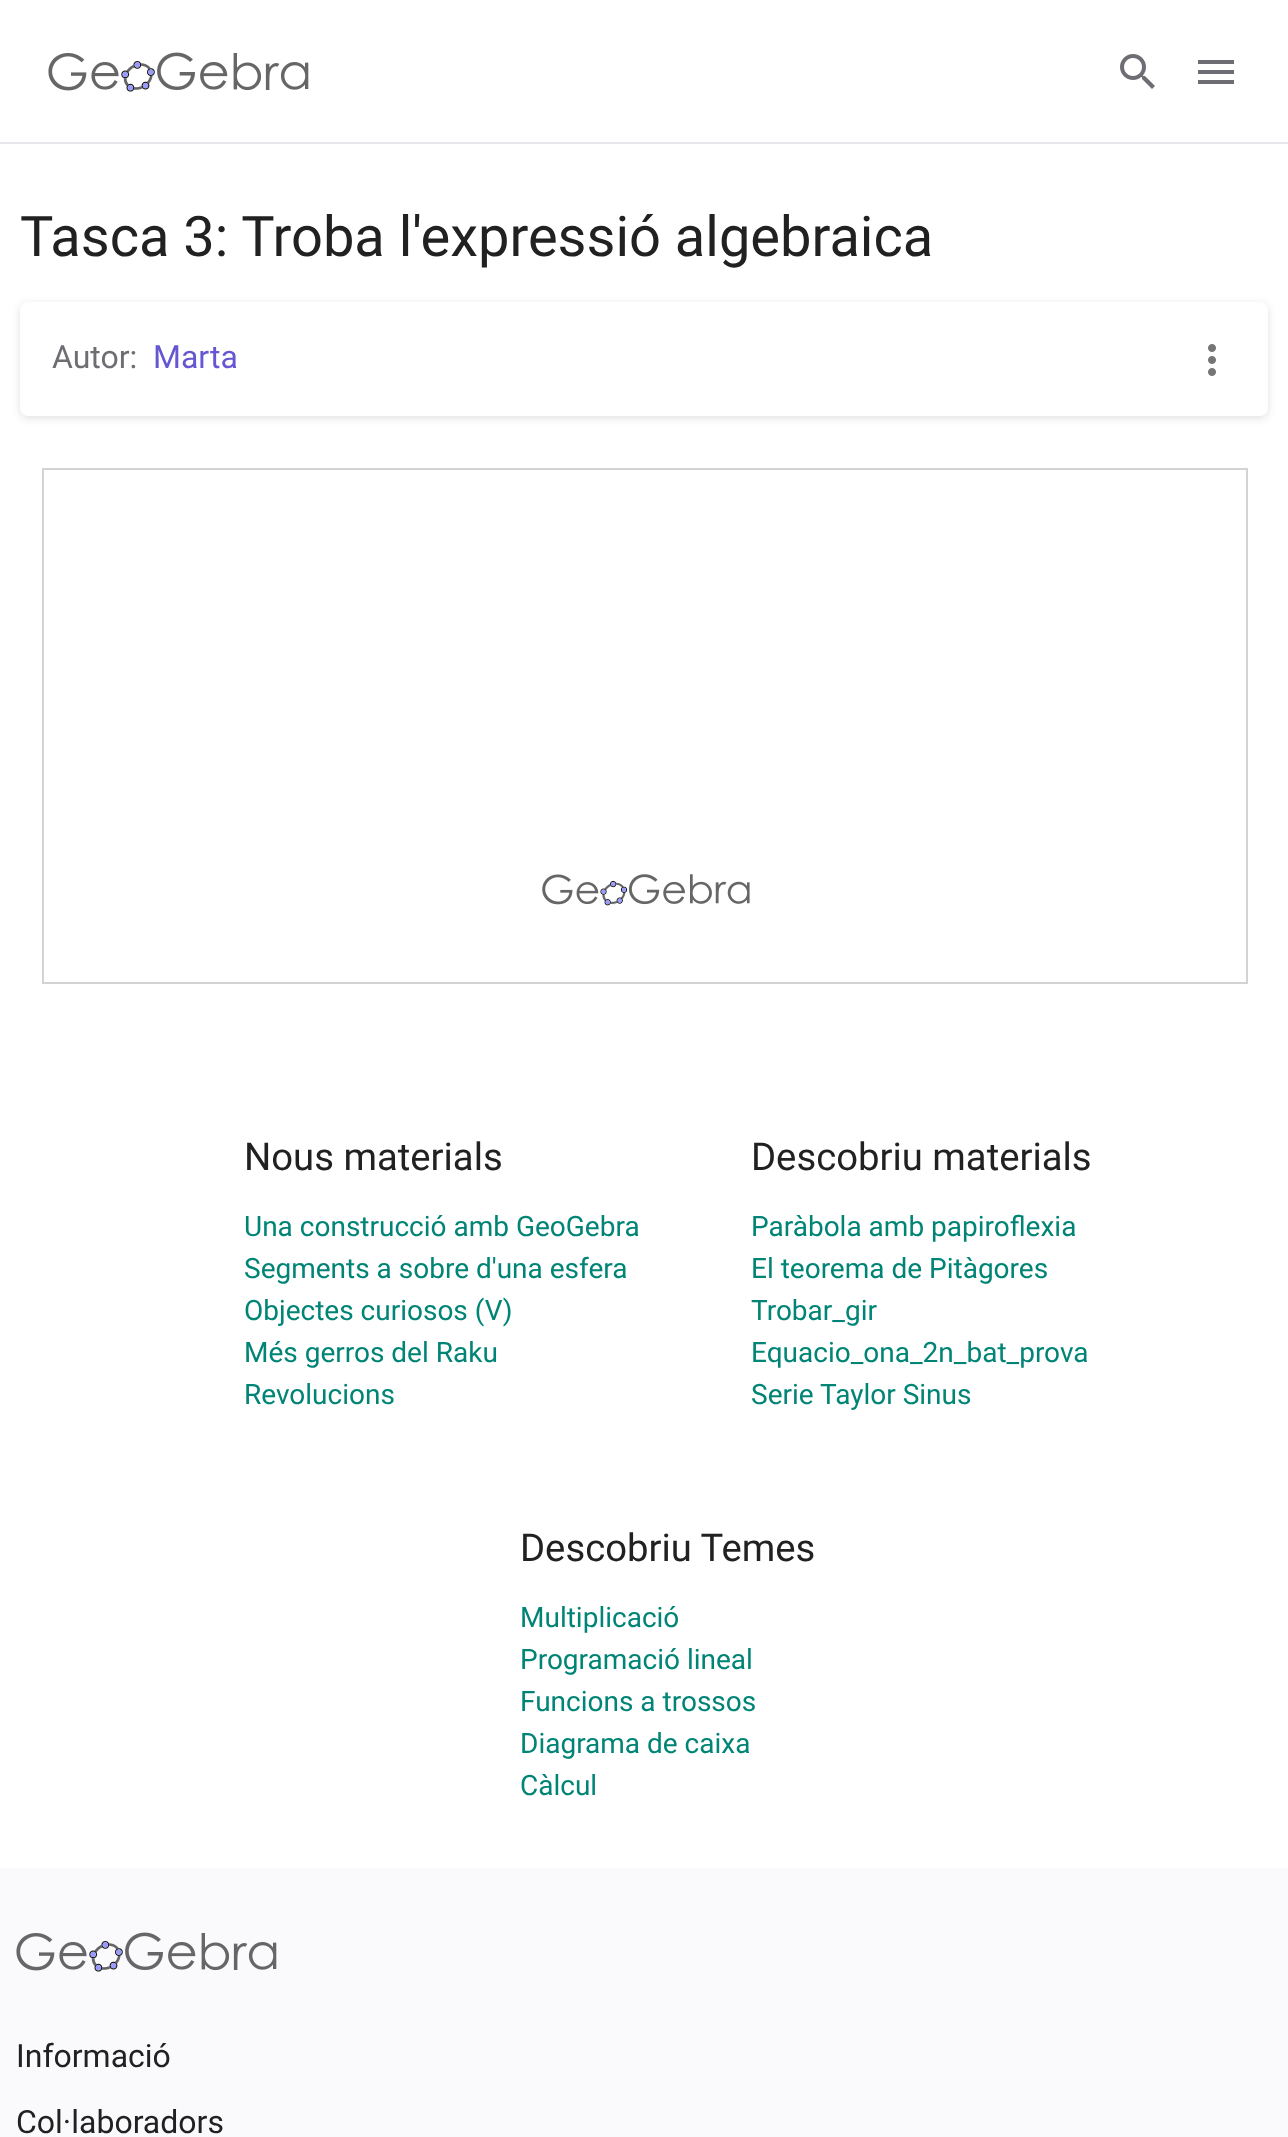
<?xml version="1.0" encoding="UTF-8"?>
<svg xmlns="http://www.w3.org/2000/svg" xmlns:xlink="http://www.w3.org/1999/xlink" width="1288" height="2137">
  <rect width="100%" height="100%" fill="#ffffff" />
  <rect y="142" width="1288" height="2" fill="#e6e6eb" />
  <image x="48" y="52" width="261" height="40" xlink:href="image1.png" />
  <image x="1120" y="54" width="35" height="35" xlink:href="image2.png" />
  <image x="1198" y="60" width="36" height="24" xlink:href="image3.png" />
  <rect x="20" y="304" width="1248" height="114" rx="8" fill="#1c1c1f" fill-opacity="0.14" filter="blur(4px)" />
  <rect x="20" y="302" width="1248" height="114" rx="8" fill="#ffffff" />
  <image x="1208" y="344" width="8" height="32" xlink:href="image4.png" />
  <image x="542" y="874" width="208" height="32" xlink:href="image5.png" />
  <rect x="43" y="469" width="1204" height="514" fill="none" stroke="#d3d3d3" stroke-width="2" />
  <rect y="1868" width="1288" height="269" fill="#fafafc" />
  <image x="16" y="1932" width="261" height="40" xlink:href="image6.png" />
  <text x="20" y="256" style="font-family: Roboto; font-size: 56px; fill: #212121">Tasca 3: Troba l'expressió algebraica</text>
  <text x="52" y="368" style="font-family: Roboto; font-size: 32px; fill: #6e6d73">Autor:</text>
  <text x="153" y="368" style="font-family: Roboto; font-size: 32px; fill: #6557d2">Marta</text>
  <text x="244" y="1170" style="font-family: Roboto; font-size: 38.25px; fill: #212121">Nous materials</text>
  <text x="244" y="1236" style="font-family: Roboto; font-size: 28px; fill: #008475">Una construcció amb GeoGebra</text>
  <text x="244" y="1278" style="font-family: Roboto; font-size: 28px; fill: #008475">Segments a sobre d'una esfera</text>
  <text x="244" y="1320" style="font-family: Roboto; font-size: 28px; fill: #008475">Objectes curiosos (V)</text>
  <text x="244" y="1362" style="font-family: Roboto; font-size: 28px; fill: #008475">Més gerros del Raku</text>
  <text x="244" y="1404" style="font-family: Roboto; font-size: 28px; fill: #008475">Revolucions</text>
  <text x="751" y="1170" style="font-family: Roboto; font-size: 38.25px; fill: #212121">Descobriu materials</text>
  <text x="751" y="1236" style="font-family: Roboto; font-size: 28px; fill: #008475">Paràbola amb papiroflexia</text>
  <text x="751" y="1278" style="font-family: Roboto; font-size: 28px; fill: #008475">El teorema de Pitàgores</text>
  <text x="751" y="1320" style="font-family: Roboto; font-size: 28px; fill: #008475">Trobar_gir</text>
  <text x="751" y="1362" style="font-family: Roboto; font-size: 28px; fill: #008475">Equacio_ona_2n_bat_prova</text>
  <text x="751" y="1404" style="font-family: Roboto; font-size: 28px; fill: #008475">Serie Taylor Sinus</text>
  <text x="520" y="1561" style="font-family: Roboto; font-size: 38.25px; fill: #212121">Descobriu Temes</text>
  <text x="520" y="1627" style="font-family: Roboto; font-size: 28px; fill: #008475">Multiplicació</text>
  <text x="520" y="1669" style="font-family: Roboto; font-size: 28px; fill: #008475">Programació lineal</text>
  <text x="520" y="1711" style="font-family: Roboto; font-size: 28px; fill: #008475">Funcions a trossos</text>
  <text x="520" y="1753" style="font-family: Roboto; font-size: 28px; fill: #008475">Diagrama de caixa</text>
  <text x="520" y="1795" style="font-family: Roboto; font-size: 28px; fill: #008475">Càlcul</text>
  <text x="16" y="2067" style="font-family: Roboto; font-size: 32px; fill: #212121">Informació</text>
  <text x="16" y="2133" style="font-family: Roboto; font-size: 32px; fill: #212121">Col·laboradors</text>
</svg>
